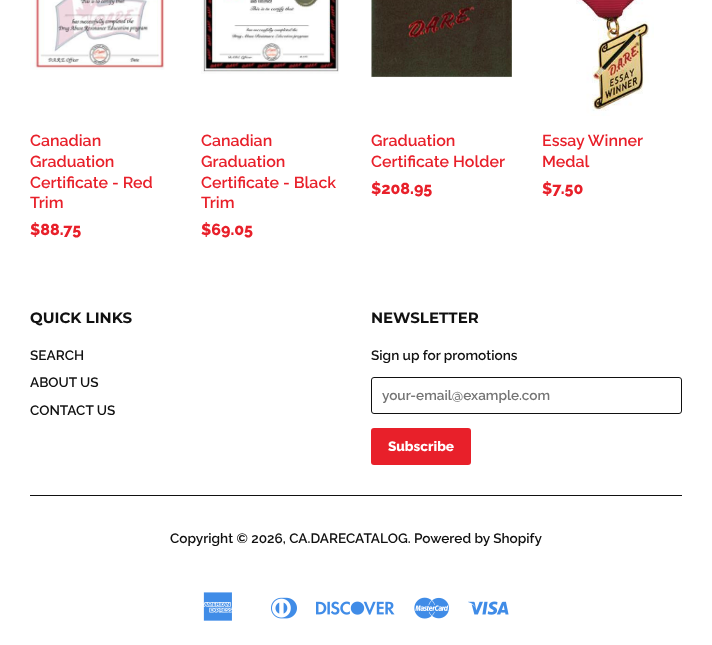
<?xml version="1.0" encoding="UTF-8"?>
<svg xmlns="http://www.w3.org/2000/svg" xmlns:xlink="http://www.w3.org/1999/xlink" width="712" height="645">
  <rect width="100%" height="100%" fill="#ffffff" />
  <image x="30" y="0" width="135" height="70" xlink:href="image1.png" />
  <image x="201" y="0" width="138" height="74" xlink:href="image2.png" />
  <image x="371" y="0" width="141" height="78" xlink:href="image3.png" />
  <image x="576" y="0" width="78" height="116" xlink:href="image4.png" />
  <rect x="371.5" y="377.5" width="310" height="36" rx="2.5" fill="none" stroke="#111111" />
  <rect x="371" y="428" width="100" height="37" rx="3" fill="#e8202a" />
  <rect x="30" y="495" width="652" height="1" fill="#111111" />
  <image x="203" y="592" width="30" height="29" xlink:href="image5.png" />
  <image x="271" y="597" width="26" height="22" xlink:href="image6.png" />
  <image x="316" y="601" width="79" height="14" xlink:href="image7.png" />
  <image x="414" y="597" width="35" height="22" xlink:href="image8.png" />
  <image x="468" y="601" width="41" height="14" xlink:href="image9.png" />
  <text x="30" y="146" style="font-family: Raleway; font-size: 16px; font-weight: 600; fill: #e8202a">Canadian</text>
  <text x="30" y="167" style="font-family: Raleway; font-size: 16px; font-weight: 600; fill: #e8202a">Graduation</text>
  <text x="30" y="188" style="font-family: Raleway; font-size: 16px; font-weight: 600; fill: #e8202a">Certificate - Red</text>
  <text x="30" y="208" style="font-family: Raleway; font-size: 16px; font-weight: 600; fill: #e8202a">Trim</text>
  <text x="30" y="235" style="font-family: Raleway; font-size: 16px; font-weight: 800; fill: #e8202a">$88.75</text>
  <text x="201" y="146" style="font-family: Raleway; font-size: 16px; font-weight: 600; fill: #e8202a">Canadian</text>
  <text x="201" y="167" style="font-family: Raleway; font-size: 16px; font-weight: 600; fill: #e8202a">Graduation</text>
  <text x="201" y="188" style="font-family: Raleway; font-size: 16px; font-weight: 600; fill: #e8202a">Certificate - Black</text>
  <text x="201" y="208" style="font-family: Raleway; font-size: 16px; font-weight: 600; fill: #e8202a">Trim</text>
  <text x="201" y="235" style="font-family: Raleway; font-size: 16px; font-weight: 800; fill: #e8202a">$69.05</text>
  <text x="371" y="146" style="font-family: Raleway; font-size: 16px; font-weight: 600; fill: #e8202a">Graduation</text>
  <text x="371" y="167" style="font-family: Raleway; font-size: 16px; font-weight: 600; fill: #e8202a">Certificate Holder</text>
  <text x="371" y="194" style="font-family: Raleway; font-size: 16px; font-weight: 800; fill: #e8202a">$208.95</text>
  <text x="542" y="146" style="font-family: Raleway; font-size: 16px; font-weight: 600; fill: #e8202a">Essay Winner</text>
  <text x="542" y="167" style="font-family: Raleway; font-size: 16px; font-weight: 600; fill: #e8202a">Medal</text>
  <text x="542" y="194" style="font-family: Raleway; font-size: 16px; font-weight: 800; fill: #e8202a">$7.50</text>
  <text x="30" y="323" style="font-family: Montserrat; font-size: 15px; font-weight: 100; fill: #111111">QUICK LINKS</text>
  <text x="30" y="360" style="font-family: Raleway; font-size: 13.6px; font-weight: 600; fill: #111111">SEARCH</text>
  <text x="30" y="387" style="font-family: Raleway; font-size: 13.6px; font-weight: 600; fill: #111111">ABOUT US</text>
  <text x="30" y="415" style="font-family: Raleway; font-size: 13.6px; font-weight: 600; fill: #111111">CONTACT US</text>
  <text x="371" y="323" style="font-family: Montserrat; font-size: 15px; font-weight: 100; fill: #111111">NEWSLETTER</text>
  <text x="371" y="360" style="font-family: Raleway; font-size: 13.6px; font-weight: 600; fill: #111111">Sign up for promotions</text>
  <text x="382" y="400" style="font-family: Raleway; font-size: 13.6px; font-weight: 600; fill: #757575">your-email@example.com</text>
  <text x="388" y="451" style="font-family: Raleway; font-size: 13.6px; font-weight: 800; fill: #ffffff">Subscribe</text>
  <text x="170" y="543" style="font-family: Raleway; font-size: 13.6px; font-weight: 600; fill: #111111">Copyright © 2026, CA.DARECATALOG. Powered by Shopify</text>
</svg>
